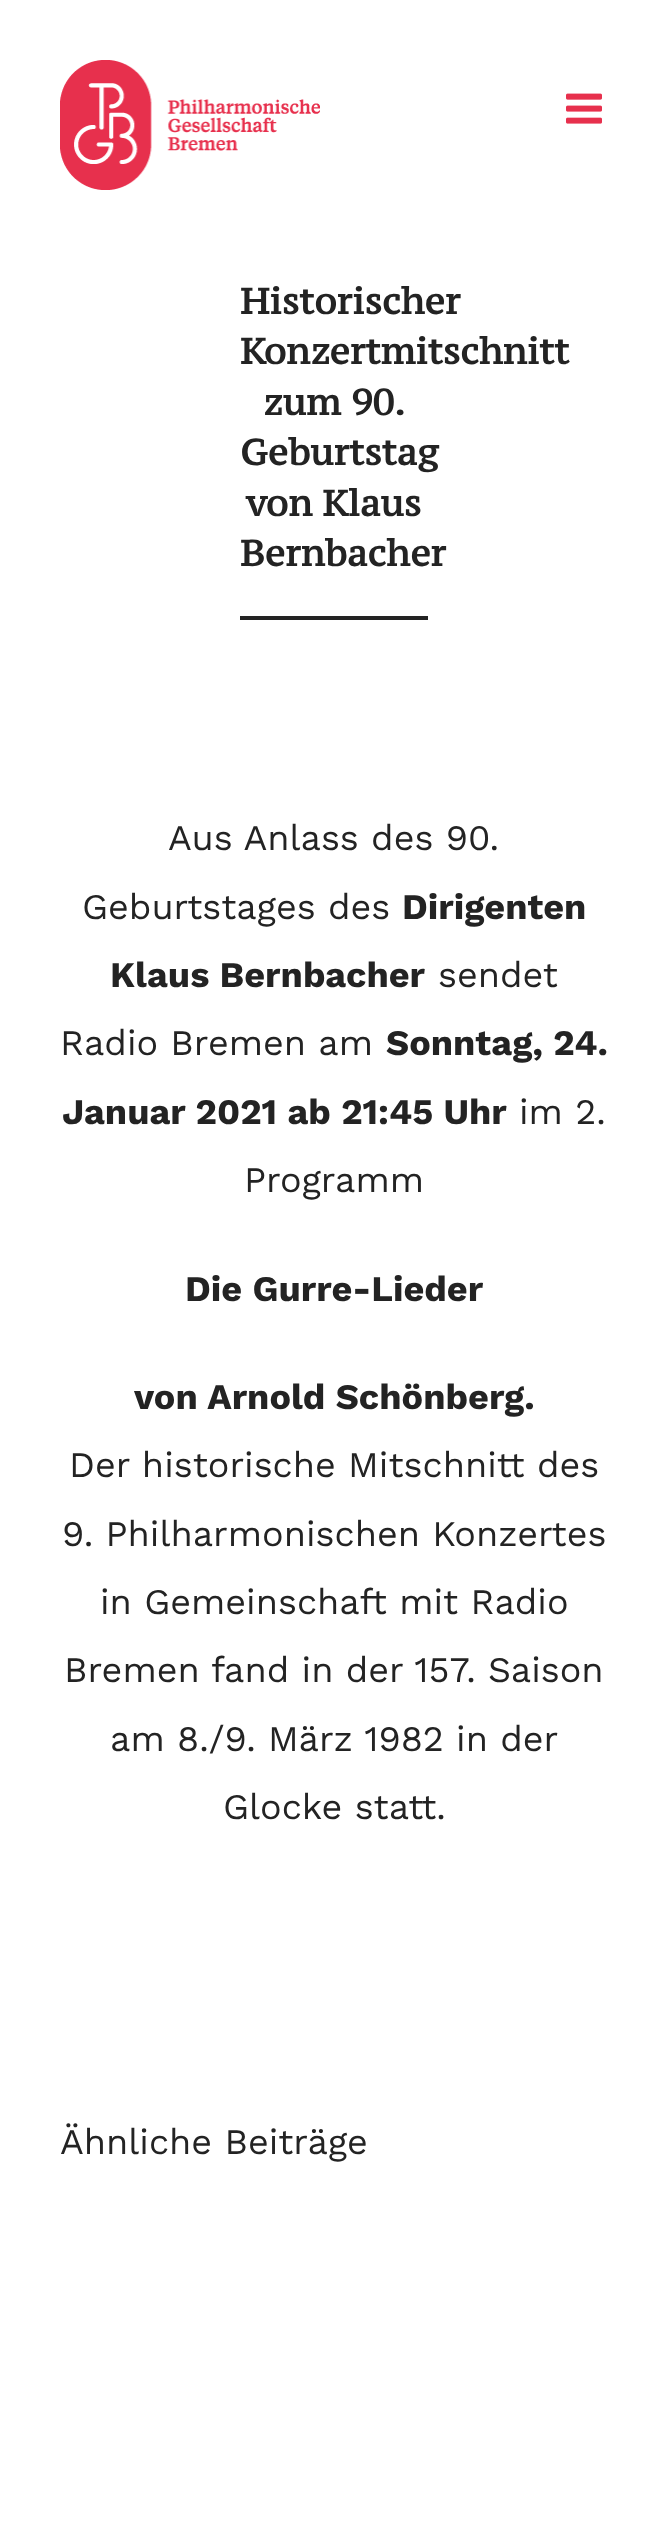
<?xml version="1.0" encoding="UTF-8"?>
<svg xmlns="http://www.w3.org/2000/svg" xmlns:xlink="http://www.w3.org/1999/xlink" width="667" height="2538">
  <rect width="100%" height="100%" fill="#ffffff" />
  <image x="60" y="60" width="260" height="130" xlink:href="image1.png" />
  <image x="566" y="93" width="36" height="31" xlink:href="image2.png" />
  <rect x="240" y="616" width="188" height="4" fill="#232323" />
  <text x="240" y="314" style="font-family: PT Serif Caption; font-size: 36px; font-weight: bold; fill: #232323">Historischer</text>
  <text x="240" y="364" style="font-family: PT Serif Caption; font-size: 36px; font-weight: bold; fill: #232323">Konzertmitschnitt</text>
  <text x="263" y="415" style="font-family: PT Serif Caption; font-size: 36px; font-weight: bold; fill: #232323">zum 90.</text>
  <text x="240" y="465" style="font-family: PT Serif Caption; font-size: 36px; font-weight: bold; fill: #232323">Geburtstag</text>
  <text x="246" y="516" style="font-family: PT Serif Caption; font-size: 36px; font-weight: bold; fill: #232323">von Klaus</text>
  <text x="240" y="566" style="font-family: PT Serif Caption; font-size: 36px; font-weight: bold; fill: #232323">Bernbacher</text>
  <text x="168" y="850" style="font-family: Work Sans; font-size: 36px; fill: #232323">Aus Anlass des 90.</text>
  <text x="82" y="919" style="font-family: Work Sans; font-size: 36px; fill: #232323">Geburtstages des</text>
  <text x="402" y="919" style="font-family: Work Sans; font-size: 36px; font-weight: bold; fill: #232323">Dirigenten</text>
  <text x="110" y="987" style="font-family: Work Sans; font-size: 36px; font-weight: bold; fill: #232323">Klaus Bernbacher</text>
  <text x="438" y="987" style="font-family: Work Sans; font-size: 36px; fill: #232323">sendet</text>
  <text x="60" y="1055" style="font-family: Work Sans; font-size: 36px; fill: #232323">Radio Bremen am</text>
  <text x="386" y="1055" style="font-family: Work Sans; font-size: 36px; font-weight: bold; fill: #232323">Sonntag, 24.</text>
  <text x="62" y="1124" style="font-family: Work Sans; font-size: 36px; font-weight: bold; fill: #232323">Januar 2021 ab 21:45 Uhr</text>
  <text x="519" y="1124" style="font-family: Work Sans; font-size: 36px; fill: #232323">im 2.</text>
  <text x="244" y="1192" style="font-family: Work Sans; font-size: 36px; fill: #232323">Programm</text>
  <text x="185" y="1301" style="font-family: Work Sans; font-size: 36px; font-weight: bold; fill: #232323">Die Gurre-Lieder</text>
  <text x="134" y="1409" style="font-family: Work Sans; font-size: 36px; font-weight: bold; fill: #232323">von Arnold Schönberg.</text>
  <text x="69" y="1477" style="font-family: Work Sans; font-size: 36px; fill: #232323">Der historische Mitschnitt des</text>
  <text x="62" y="1546" style="font-family: Work Sans; font-size: 36px; fill: #232323">9. Philharmonischen Konzertes</text>
  <text x="100" y="1614" style="font-family: Work Sans; font-size: 36px; fill: #232323">in Gemeinschaft mit Radio</text>
  <text x="64" y="1682" style="font-family: Work Sans; font-size: 36px; fill: #232323">Bremen</text>
  <text x="211" y="1682" style="font-family: Work Sans; font-size: 36px; fill: #232323">fand in der 157. Saison</text>
  <text x="110" y="1751" style="font-family: Work Sans; font-size: 36px; fill: #232323">am 8./9. März 1982 in der</text>
  <text x="223" y="1819" style="font-family: Work Sans; font-size: 36px; fill: #232323">Glocke statt.</text>
  <text x="60" y="2154" style="font-family: Work Sans; font-size: 36px; fill: #232323">Ähnliche Beiträge</text>
</svg>
